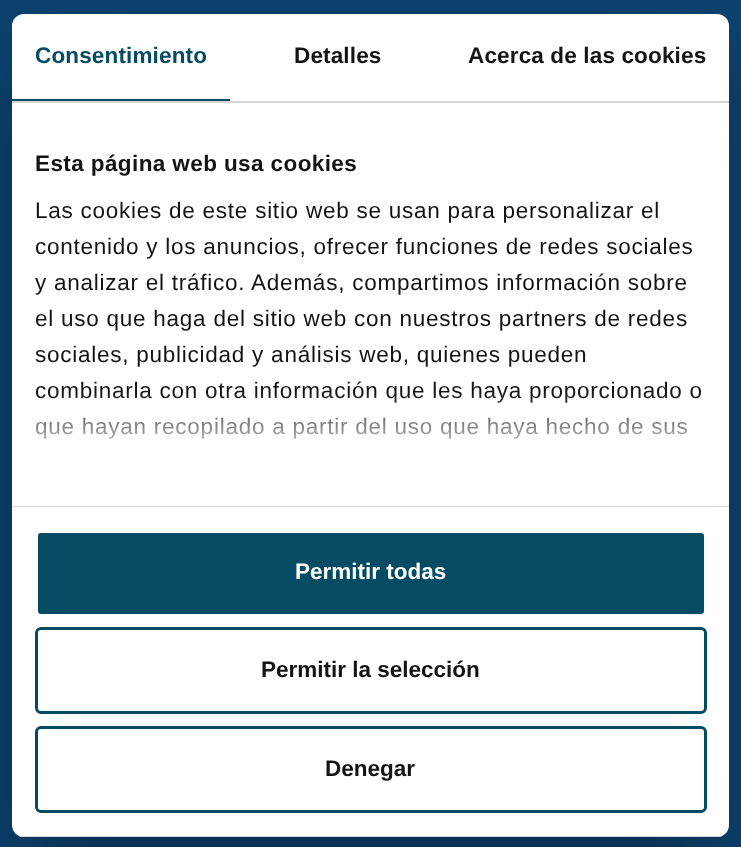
<?xml version="1.0" encoding="UTF-8"?>
<svg xmlns="http://www.w3.org/2000/svg" xmlns:xlink="http://www.w3.org/1999/xlink" width="741" height="847">
  <defs>
    <clipPath id="clip1"><rect x="12" y="14" width="717" height="823" rx="12" /></clipPath>
    <linearGradient id="g1" gradientUnits="userSpaceOnUse" x1="361" y1="505" x2="361" y2="392"><stop offset="0" stop-color="#ffffff" /><stop offset="0.5" stop-color="#ffffff" stop-opacity="0.8" /><stop offset="1" stop-color="#ffffff" stop-opacity="0" /></linearGradient>
  </defs>
  <rect width="100%" height="100%" fill="#0d4371" />
  <rect x="12" y="62" width="717" height="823" rx="12" fill="#000000" fill-opacity="0.3" filter="blur(51px)" />
  <rect x="12" y="14" width="717" height="823" rx="12" fill="#ffffff" />
  <rect x="12" y="101" width="717" height="2" fill="#d6d6d6" />
  <rect x="12" y="99" width="218" height="2" fill="#054b64" />
  <rect x="12" y="506" width="717" height="1" fill="#d6d6d6" />
  <g clip-path="url(#clip1)">
    <rect x="12" y="836" width="717" height="1" fill="#d6d6d6" />
  </g>
  <rect x="36.5" y="531.5" width="669" height="84" rx="4.5" fill="#054b64" stroke="#ffffff" stroke-width="3" />
  <rect x="36.5" y="628.5" width="669" height="84" rx="4.5" fill="none" stroke="#054b64" stroke-width="3" />
  <rect x="36.5" y="727.5" width="669" height="84" rx="4.5" fill="none" stroke="#054b64" stroke-width="3" />
  <text x="35" y="63" style="font-family: Liberation Sans; font-size: 22.5px; font-weight: bold; letter-spacing: 0.15px; fill: #054b64">Consentimiento</text>
  <text x="294" y="63" style="font-family: Liberation Sans; font-size: 22.5px; font-weight: bold; letter-spacing: 0.15px; fill: #141414">Detalles</text>
  <text x="468" y="63" style="font-family: Liberation Sans; font-size: 22.5px; font-weight: bold; letter-spacing: 0.15px; fill: #141414">Acerca de las cookies</text>
  <text x="35" y="171" style="font-family: Liberation Sans; font-size: 22.5px; font-weight: bold; letter-spacing: 0.4px; fill: #141414">Esta página web usa cookies</text>
  <text x="35" y="218" style="font-family: Liberation Sans; font-size: 22.5px; letter-spacing: 0.75px; fill: #141414">Las cookies de este sitio web se usan para personalizar el</text>
  <text x="35" y="254" style="font-family: Liberation Sans; font-size: 22.5px; letter-spacing: 0.75px; fill: #141414">contenido y los anuncios, ofrecer funciones de redes sociales</text>
  <text x="35" y="290" style="font-family: Liberation Sans; font-size: 22.5px; letter-spacing: 0.75px; fill: #141414">y analizar el tráfico. Además, compartimos información sobre</text>
  <text x="35" y="326" style="font-family: Liberation Sans; font-size: 22.5px; letter-spacing: 0.75px; fill: #141414">el uso que haga del sitio web con nuestros partners de redes</text>
  <text x="35" y="362" style="font-family: Liberation Sans; font-size: 22.5px; letter-spacing: 0.75px; fill: #141414">sociales, publicidad y análisis web, quienes pueden</text>
  <text x="35" y="398" style="font-family: Liberation Sans; font-size: 22.5px; letter-spacing: 0.75px; fill: #141414">combinarla con otra información que les haya proporcionado o</text>
  <text x="35" y="434" style="font-family: Liberation Sans; font-size: 22.5px; letter-spacing: 0.75px; fill: #141414">que hayan recopilado a partir del uso que haya hecho de sus</text>
  <rect x="35" y="394" width="666" height="45" fill="url(#g1)" />
  <text x="295" y="579" style="font-family: Liberation Sans; font-size: 22.5px; font-weight: bold; fill: #ffffff">Permitir todas</text>
  <text x="261" y="677" style="font-family: Liberation Sans; font-size: 22.5px; font-weight: bold; fill: #141414">Permitir la selección</text>
  <text x="325" y="776" style="font-family: Liberation Sans; font-size: 22.5px; font-weight: bold; fill: #141414">Denegar</text>
</svg>
